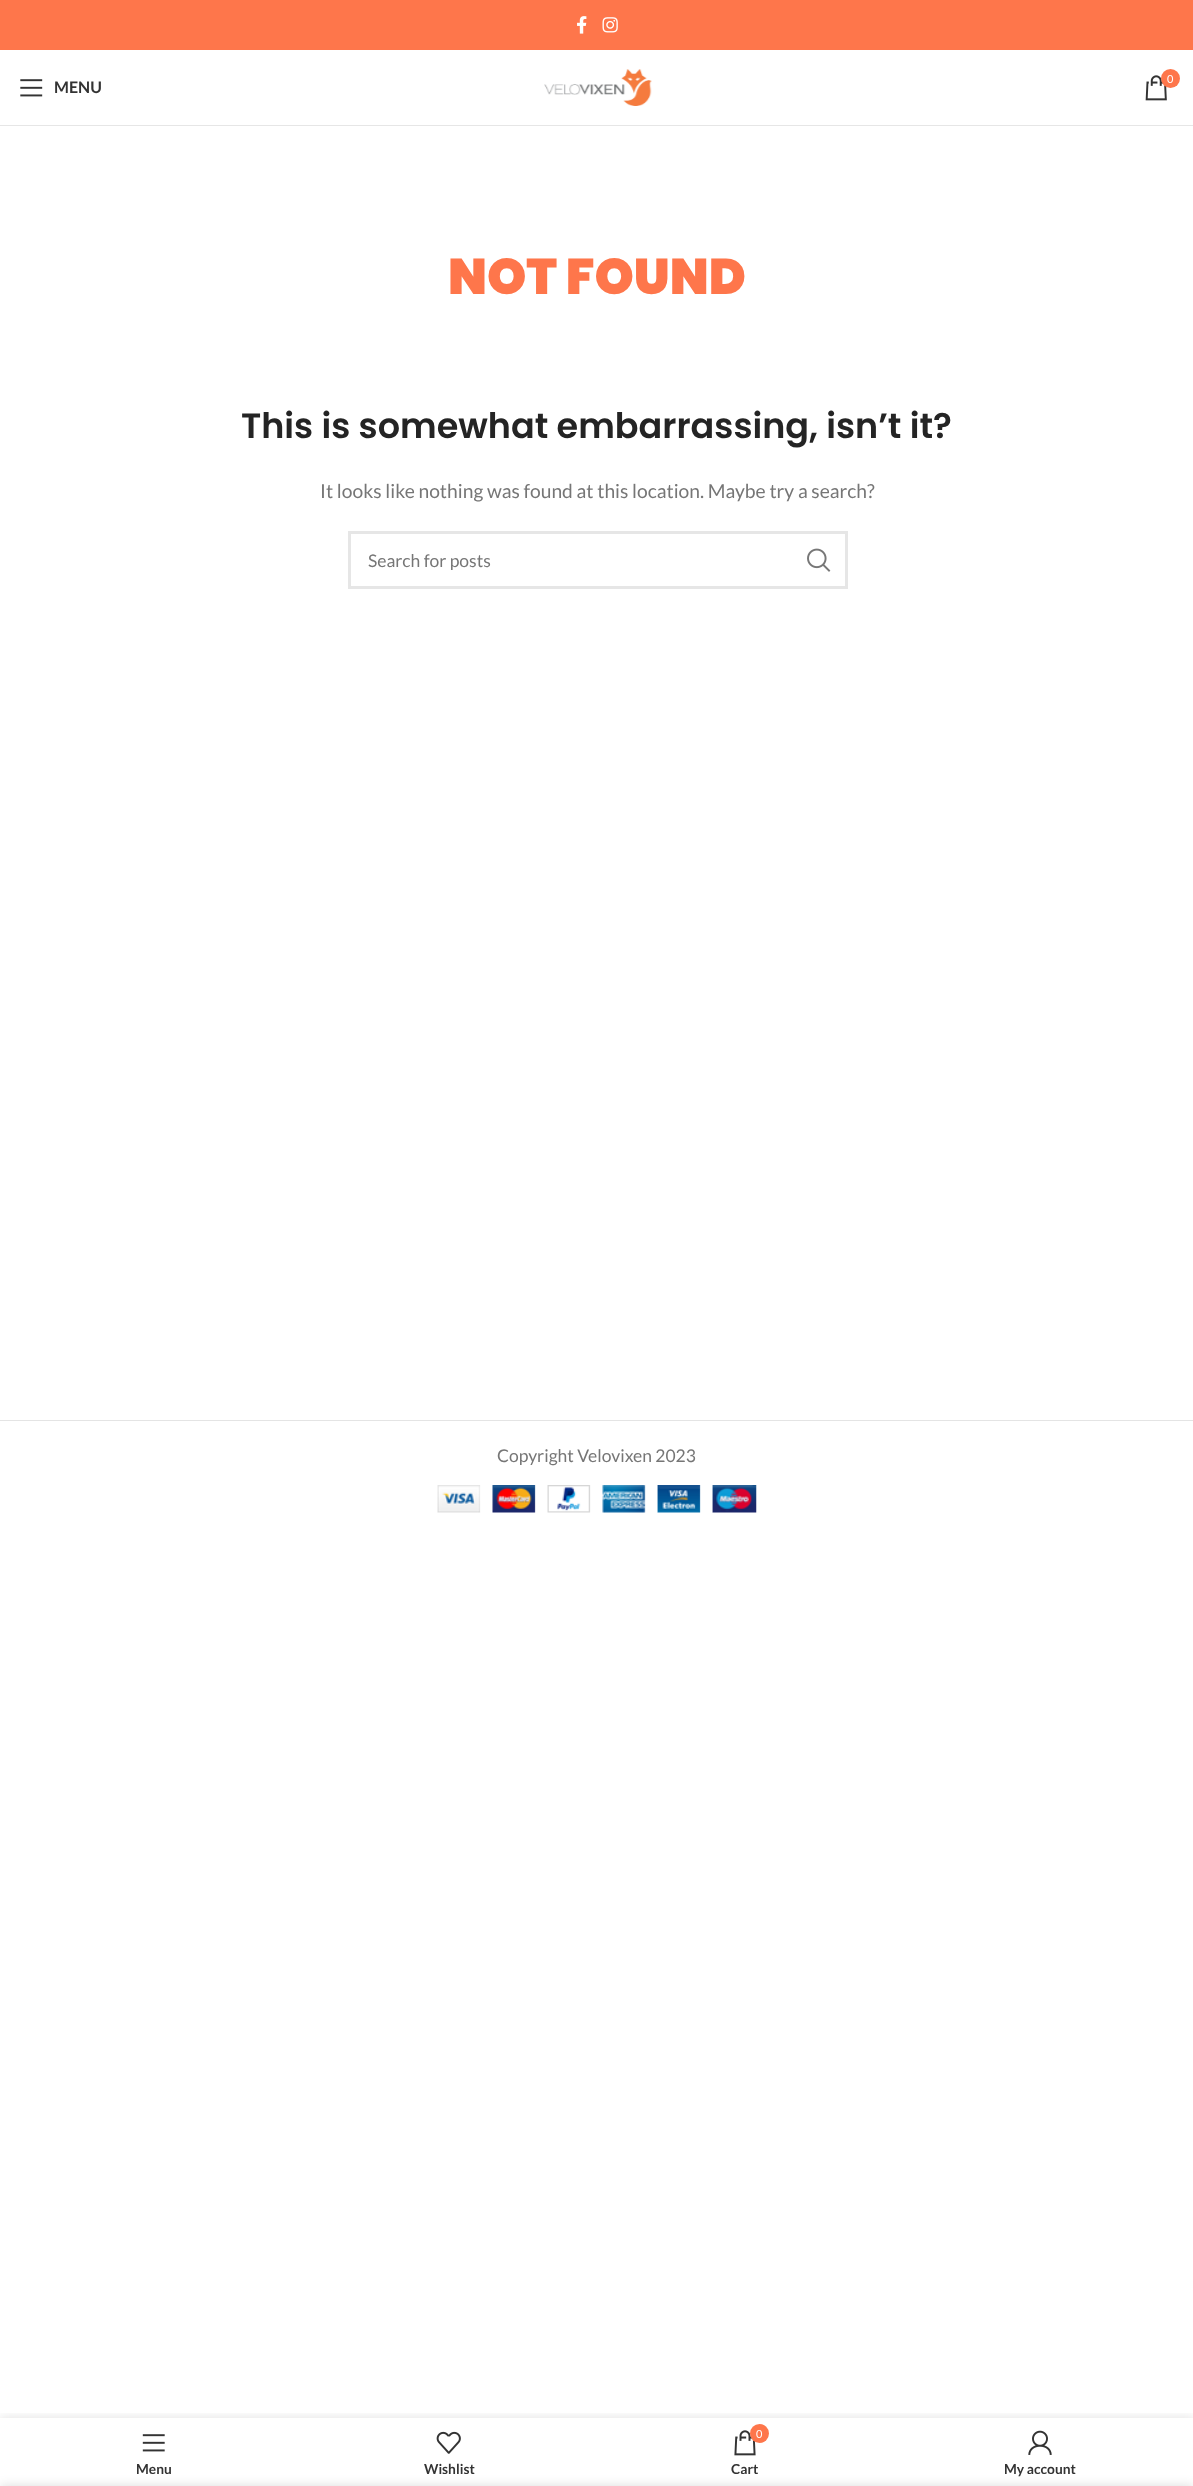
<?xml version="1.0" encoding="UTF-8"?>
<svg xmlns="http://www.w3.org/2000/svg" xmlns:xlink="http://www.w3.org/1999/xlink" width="1193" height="2486">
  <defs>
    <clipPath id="clip1"><rect x="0" y="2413" width="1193" height="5" /></clipPath>
  </defs>
  <rect width="100%" height="100%" fill="#ffffff" />
  <rect width="1193" height="50" fill="#fe764b" />
  <image x="577" y="16" width="10" height="18" xlink:href="image1.png" />
  <image x="602" y="17" width="16" height="16" xlink:href="image2.png" />
  <rect y="125" width="1193" height="1" fill="#e6e6e6" />
  <image x="544" y="69" width="108" height="37" xlink:href="image3.png" />
  <image x="1145" y="75" width="22" height="26" xlink:href="image4.png" />
  <circle cx="1170.5" cy="78.5" r="9.5" fill="#fe764b" />
  <image x="20" y="79" width="23" height="18" xlink:href="image5.png" />
  <rect x="349.5" y="532.5" width="497" height="55" fill="none" stroke="#e6e6e6" stroke-width="3" />
  <image x="807" y="548" width="24" height="24" xlink:href="image6.png" />
  <rect y="1420" width="1193" height="1" fill="#e4e4e4" />
  <image x="437" y="1485" width="320" height="28" xlink:href="image7.png" />
  <g clip-path="url(#clip1)">
    <rect y="2418" width="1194" height="68" fill="#000000" fill-opacity="0.12" filter="blur(5.5px)" />
  </g>
  <image x="142" y="2434" width="23" height="18" xlink:href="image8.png" />
  <image x="436" y="2431" width="25" height="23" xlink:href="image9.png" />
  <image x="734" y="2430" width="22" height="26" xlink:href="image10.png" />
  <circle cx="759.5" cy="2433.5" r="9.5" fill="#fe764b" />
  <image x="1028" y="2430" width="24" height="25" xlink:href="image11.png" />
  <rect y="2486" width="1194" height="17" fill="#000000" fill-opacity="0.14" filter="blur(5.5px)" />
  <text x="1167" y="83" style="font-family: Lato; font-size: 11px; fill: #ffffff">0</text>
  <text x="54" y="93" style="font-family: Lato; font-size: 16px; font-weight: bold; fill: #333333">MENU</text>
  <text x="448" y="294" style="font-family: Poppins; font-size: 50px; font-weight: 900; fill: #fe764b">NOT FOUND</text>
  <text x="241" y="438" style="font-family: Poppins; font-size: 35px; font-weight: 600; fill: #242424">This is somewhat embarrassing, isn’t it?</text>
  <text x="320" y="498" style="font-family: Lato; font-size: 19.25px; fill: #767676">It looks like nothing was found at this location. Maybe try a search?</text>
  <text x="368" y="567" style="font-family: Lato; font-size: 17.5px; fill: #767676">Search for posts</text>
  <text x="497" y="1462" style="font-family: Lato; font-size: 17.5px; fill: #767676">Copyright Velovixen 2023</text>
  <text x="136" y="2474" style="font-family: Lato; font-size: 13.75px; font-weight: bold; fill: #333333">Menu</text>
  <text x="424" y="2474" style="font-family: Lato; font-size: 13.75px; font-weight: bold; fill: #333333">Wishlist</text>
  <text x="756" y="2438" style="font-family: Lato; font-size: 11px; fill: #ffffff">0</text>
  <text x="731" y="2474" style="font-family: Lato; font-size: 13.75px; font-weight: bold; fill: #333333">Cart</text>
  <text x="1004" y="2474" style="font-family: Lato; font-size: 13.75px; font-weight: bold; fill: #333333">My account</text>
</svg>
